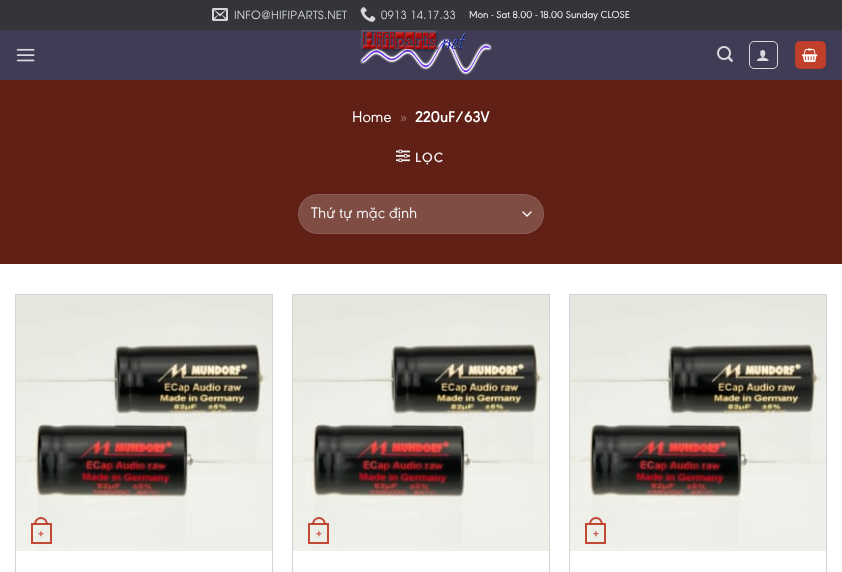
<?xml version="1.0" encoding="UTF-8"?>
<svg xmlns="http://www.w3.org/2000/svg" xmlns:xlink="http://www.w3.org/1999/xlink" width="842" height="572">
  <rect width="100%" height="100%" fill="#ffffff" />
  <rect width="842" height="30" fill="#333539" />
  <image x="212" y="8" width="16" height="13" xlink:href="image1.png" />
  <image x="360" y="7" width="16" height="15" xlink:href="image2.png" />
  <rect y="30" width="842" height="50" fill="#403c55" />
  <image x="16" y="48" width="19" height="14" xlink:href="image3.png" />
  <image x="359" y="30" width="133" height="45" xlink:href="image4.png" />
  <image x="717" y="46" width="16" height="16" xlink:href="image5.png" />
  <rect x="749.5" y="41.5" width="28" height="27" rx="4.5" fill="none" stroke="#d9d8dd" />
  <image x="756" y="50" width="13" height="11" xlink:href="image6.png" />
  <rect x="795" y="41" width="31" height="28" rx="5" fill="#bf3f2b" />
  <rect x="795.5" y="41.5" width="30" height="27" fill="none" stroke="#000000" stroke-opacity="0.05" />
  <image x="802" y="48" width="16" height="14" xlink:href="image7.png" />
  <rect y="80" width="842" height="184" fill="#602016" />
  <image x="396" y="149" width="14" height="13" xlink:href="image8.png" />
  <rect x="298" y="194" width="246" height="40" rx="20" fill="#804d45" />
  <path d="M 523 212 l 4 4 l 4 -4" fill="none" stroke="#ffffff" stroke-width="1.3" stroke-linecap="round" stroke-linejoin="round" />
  <rect x="298.5" y="194.5" width="245" height="39" rx="19.5" fill="none" stroke="#ffffff" stroke-opacity="0.09" />
  <rect x="15.5" y="294.5" width="257" height="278" fill="none" stroke="#d4d4d4" />
  <image x="16" y="295" width="256" height="256" xlink:href="image9.png" />
  <rect x="32" y="524" width="19" height="19" fill="none" stroke="#bf3f2b" stroke-opacity="0.95" stroke-width="2" />
  <path d="M 41 517 c 4.5 0 7 4 7 8 h -14 c 0 -4 2.5 -8 7 -8 z m 0 2 c 3.5 0 5 3 5 6 h -10 c 0 -3 1.5 -6 5 -6 z" fill="#bf3f2b" fill-opacity="0.95" fill-rule="evenodd" />
  <rect x="292.5" y="294.5" width="257" height="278" fill="none" stroke="#d4d4d4" />
  <image x="293" y="295" width="256" height="256" xlink:href="image9.png" />
  <rect x="309" y="524" width="19" height="19" fill="none" stroke="#bf3f2b" stroke-opacity="0.95" stroke-width="2" />
  <path d="M 319 517 c 4.5 0 7 4 7 8 h -14 c 0 -4 2.5 -8 7 -8 z m 0 2 c 3.5 0 5 3 5 6 h -10 c 0 -3 1.5 -6 5 -6 z" fill="#bf3f2b" fill-opacity="0.95" fill-rule="evenodd" />
  <rect x="569.5" y="294.5" width="257" height="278" fill="none" stroke="#d4d4d4" />
  <image x="570" y="295" width="256" height="256" xlink:href="image9.png" />
  <rect x="586" y="524" width="19" height="19" fill="none" stroke="#bf3f2b" stroke-opacity="0.95" stroke-width="2" />
  <path d="M 596 517 c 4.5 0 7 4 7 8 h -14 c 0 -4 2.5 -8 7 -8 z m 0 2 c 3.5 0 5 3 5 6 h -10 c 0 -3 1.5 -6 5 -6 z" fill="#bf3f2b" fill-opacity="0.95" fill-rule="evenodd" />
  <text x="234" y="19" style="font-family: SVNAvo; font-size: 11.25px; letter-spacing: 0.25px; fill: #d6d7d7">INFO@HIFIPARTS.NET</text>
  <text x="381" y="19" style="font-family: SVNAvo; font-size: 11.25px; letter-spacing: 0.25px; fill: #d6d7d7">0913 14.17.33</text>
  <text x="469" y="18" style="font-family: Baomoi; font-size: 10.5px; fill: #ffffff">Mon - Sat 8.00 - 18.00 Sunday CLOSE</text>
  <text x="352" y="122" style="font-family: Baomoi; font-size: 16px; fill: #ffffff">Home</text>
  <text x="400" y="122" style="font-family: Baomoi; font-size: 16px; fill: #986e68">»</text>
  <text x="415" y="122" style="font-family: Baomoi; font-size: 16px; font-weight: 600; fill: #ffffff">220uF/63V</text>
  <text x="415" y="162" style="font-family: Baomoi; font-size: 14px; font-weight: 600; letter-spacing: 1px; fill: #f1f1f1">LỌC</text>
  <text x="311" y="218" style="font-family: Baomoi; font-size: 16px; fill: #f1f1f1">Thứ tự mặc định</text>
  <text x="38" y="537" style="font-family: Liberation Sans; font-size: 10px; font-weight: bold; fill: #c14834">+</text>
  <text x="316" y="537" style="font-family: Liberation Sans; font-size: 10px; font-weight: bold; fill: #c14834">+</text>
  <text x="593" y="537" style="font-family: Liberation Sans; font-size: 10px; font-weight: bold; fill: #c14834">+</text>
</svg>
